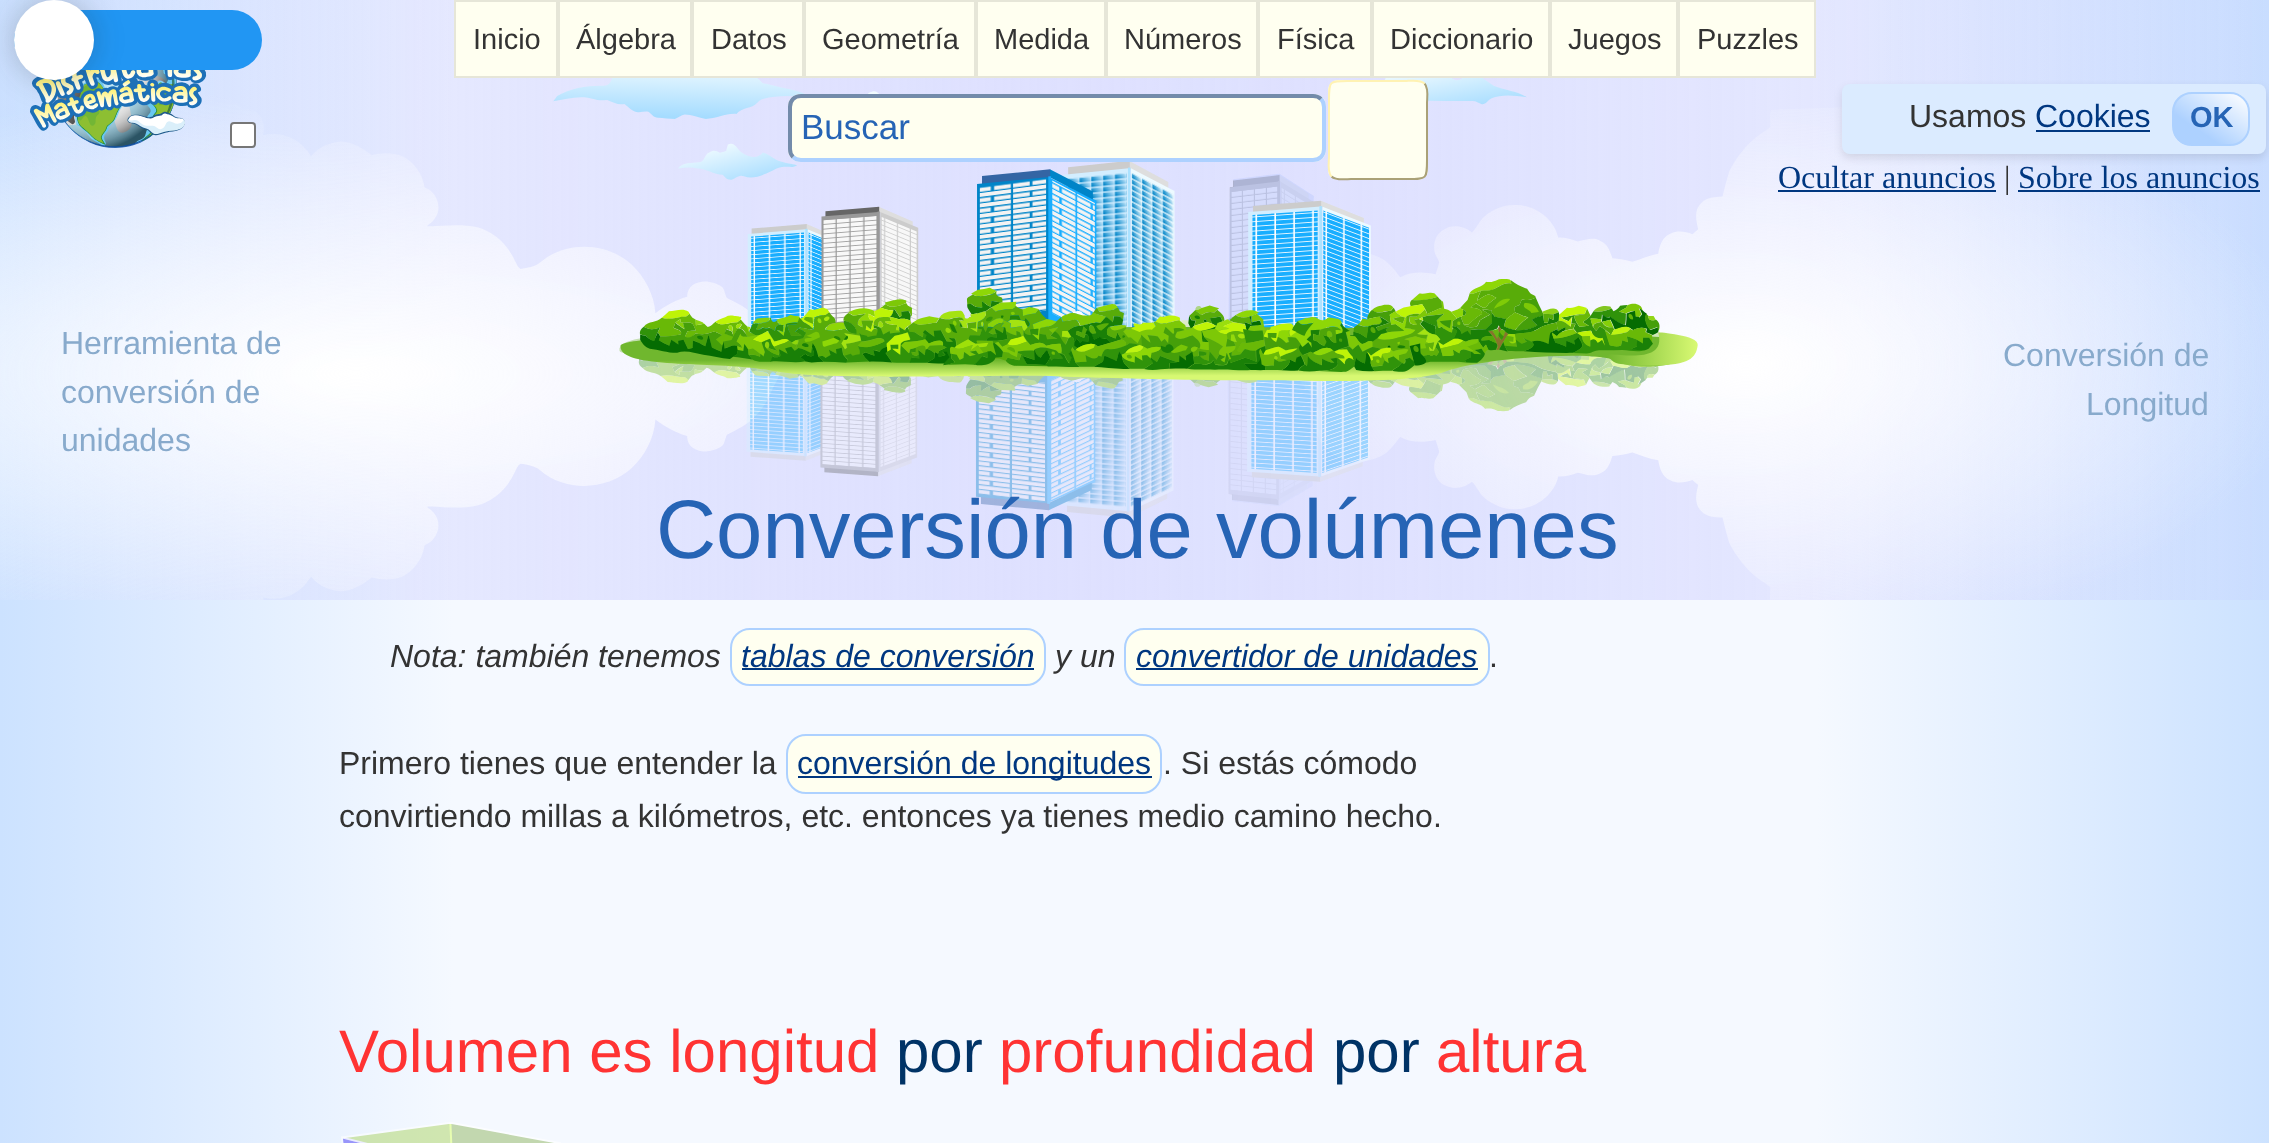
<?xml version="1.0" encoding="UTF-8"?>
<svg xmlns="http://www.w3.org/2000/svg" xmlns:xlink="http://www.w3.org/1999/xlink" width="2269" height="1143">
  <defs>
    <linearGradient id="g1" gradientUnits="userSpaceOnUse" x1="0" y1="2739" x2="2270" y2="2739"><stop offset="0" stop-color="#cce2ff" /><stop offset="0.2" stop-color="#f5f9ff" /><stop offset="0.8" stop-color="#f5f9ff" /><stop offset="1" stop-color="#cce2ff" /></linearGradient>
    <clipPath id="clip1"><rect x="2172" y="92" width="78" height="54" rx="20" /></clipPath>
    <linearGradient id="g2" gradientUnits="userSpaceOnUse" x1="2188" y1="153" x2="2234" y2="85"><stop offset="0" stop-color="#add1ff" /><stop offset="0.3" stop-color="#add1ff" /><stop offset="1" stop-color="#ffffff" /></linearGradient>
  </defs>
  <rect width="100%" height="100%" fill="#ffffff" />
  <rect width="2269" height="1143" fill="url(#g1)" />
  <image x="0" y="0" width="2269" height="600" xlink:href="image3.png" />
  <rect x="14" y="10" width="248" height="60" rx="30" fill="#2196f3" />
  <image x="30" y="70" width="177" height="78" xlink:href="image1.png" />
  <rect x="14" width="80" height="80" rx="40" fill="#202020" fill-opacity="0.24" filter="blur(15px)" />
  <circle cx="54" cy="40" r="40" fill="#ffffff" />
  <rect x="231" y="123" width="24" height="24" rx="3" fill="#ffffff" stroke="#767676" stroke-width="2" />
  <rect x="455" y="1" width="102" height="76" fill="#fffff0" stroke="#e6e6d8" stroke-width="2" />
  <rect x="559" y="1" width="132" height="76" fill="#fffff0" stroke="#e6e6d8" stroke-width="2" />
  <rect x="693" y="1" width="110" height="76" fill="#fffff0" stroke="#e6e6d8" stroke-width="2" />
  <rect x="805" y="1" width="170" height="76" fill="#fffff0" stroke="#e6e6d8" stroke-width="2" />
  <rect x="977" y="1" width="128" height="76" fill="#fffff0" stroke="#e6e6d8" stroke-width="2" />
  <rect x="1107" y="1" width="150" height="76" fill="#fffff0" stroke="#e6e6d8" stroke-width="2" />
  <rect x="1259" y="1" width="112" height="76" fill="#fffff0" stroke="#e6e6d8" stroke-width="2" />
  <rect x="1373" y="1" width="176" height="76" fill="#fffff0" stroke="#e6e6d8" stroke-width="2" />
  <rect x="1551" y="1" width="126" height="76" fill="#fffff0" stroke="#e6e6d8" stroke-width="2" />
  <rect x="1679" y="1" width="136" height="76" fill="#fffff0" stroke="#e6e6d8" stroke-width="2" />
  <rect x="788" y="94" width="538" height="68" rx="12" fill="#fffff0" />
  <path d="M 1321 99 c 2 2 3 5 3 8 v 42 c 0 3 -1 6 -3 8 c -2 2 -5 3 -8 3 h -512 c -3 0 -6 -1 -8 -3" fill="none" stroke="#add1ff" stroke-width="4" />
  <path d="M 793 157 c -2 -2 -3 -5 -3 -8 v -42 c 0 -3 1 -6 3 -8 c 2 -2 5 -3 8 -3 h 512 c 3 0 6 1 8 3" fill="none" stroke="#738baa" stroke-width="4" />
  <rect x="1328" y="80" width="100" height="100" rx="10" fill="#fffff0" />
  <path d="M 1424.5 83.5 c 4.5 4.5 2.5 15 2.5 19.5 v 54 c 0 23 1 22 -22 22 h -54 c -4.5 0 -15 2 -19.5 -2.5" fill="none" stroke="#aaa177" stroke-width="2" />
  <path d="M 1331.5 176.5 c -4.5 -4.5 -2.5 -15 -2.5 -19.5 v -54 c 0 -23 -1 -22 22 -22 h 54 c 4.5 0 15 -2 19.5 2.5" fill="none" stroke="#fff2b3" stroke-width="2" />
  <rect x="731" y="629" width="314" height="56" rx="19" fill="#fffff0" stroke="#add1ff" stroke-width="2" />
  <rect x="742" y="668" width="292" height="2" fill="#003780" />
  <rect x="1125" y="629" width="364" height="56" rx="19" fill="#fffff0" stroke="#add1ff" stroke-width="2" />
  <rect x="1136" y="668" width="342" height="2" fill="#003780" />
  <rect x="787" y="735" width="374" height="58" rx="19" fill="#fffff0" stroke="#add1ff" stroke-width="2" />
  <rect x="798" y="776" width="354" height="2" fill="#003780" />
  <image x="341" y="1122" width="220" height="21" xlink:href="image2.png" />
  <rect x="1842" y="88" width="424" height="70" rx="8" fill="#000000" fill-opacity="0.1" filter="blur(4px)" />
  <rect x="1842" y="84" width="424" height="70" rx="8" fill="#dbebff" />
  <rect x="2036" y="130" width="114" height="2" fill="#003780" />
  <g clip-path="url(#clip1)">
    <rect x="2174" y="94" width="74" height="50" fill="url(#g2)" />
  </g>
  <rect x="2173" y="93" width="76" height="52" rx="19" fill="none" stroke="#add1ff" stroke-width="2" />
  <rect x="1778" y="190" width="218" height="2" fill="#003780" />
  <rect x="2018" y="190" width="242" height="2" fill="#003780" />
  <text x="473" y="49" style="font-family: Liberation Sans; font-size: 29px; fill: #333333">Inicio</text>
  <text x="576" y="49" style="font-family: Liberation Sans; font-size: 29px; fill: #333333">Álgebra</text>
  <text x="711" y="49" style="font-family: Liberation Sans; font-size: 29px; fill: #333333">Datos</text>
  <text x="822" y="49" style="font-family: Liberation Sans; font-size: 29px; fill: #333333">Geometría</text>
  <text x="994" y="49" style="font-family: Liberation Sans; font-size: 29px; fill: #333333">Medida</text>
  <text x="1124" y="49" style="font-family: Liberation Sans; font-size: 29px; fill: #333333">Números</text>
  <text x="1277" y="49" style="font-family: Liberation Sans; font-size: 29px; fill: #333333">Física</text>
  <text x="1390" y="49" style="font-family: Liberation Sans; font-size: 29px; fill: #333333">Diccionario</text>
  <text x="1568" y="49" style="font-family: Liberation Sans; font-size: 29px; fill: #333333">Juegos</text>
  <text x="1697" y="49" style="font-family: Liberation Sans; font-size: 29px; fill: #333333">Puzzles</text>
  <text x="801" y="139" style="font-family: Liberation Sans; font-size: 35px; fill: #2664b5">Buscar</text>
  <text x="656" y="558" style="font-family: Liberation Sans; font-size: 83.25px; fill: #2664b5">Conversión de volúmenes</text>
  <text x="390" y="667" style="font-family: Liberation Sans; font-size: 32px; font-style: italic; fill: #333333">Nota: también tenemos</text>
  <text x="741" y="667" style="font-family: Liberation Sans; font-size: 32px; font-style: italic; fill: #003780">tablas de conversión</text>
  <text x="1055" y="667" style="font-family: Liberation Sans; font-size: 32px; font-style: italic; fill: #333333">y un</text>
  <text x="1136" y="667" style="font-family: Liberation Sans; font-size: 32px; font-style: italic; fill: #003780">convertidor de unidades</text>
  <text x="1489" y="667" style="font-family: Liberation Sans; font-size: 32px; fill: #333333">.</text>
  <text x="339" y="774" style="font-family: Liberation Sans; font-size: 32px; fill: #333333">Primero tienes que entender la</text>
  <text x="797" y="774" style="font-family: Liberation Sans; font-size: 32px; fill: #003780">conversión de longitudes</text>
  <text x="1163" y="774" style="font-family: Liberation Sans; font-size: 32px; fill: #333333">. Si estás cómodo</text>
  <text x="339" y="827" style="font-family: Liberation Sans; font-size: 32px; fill: #333333">convirtiendo millas a kilómetros, etc. entonces ya tienes medio camino hecho.</text>
  <text x="339" y="1072" style="font-family: Liberation Sans; font-size: 60px; fill: #ff3333">Volumen es longitud</text>
  <text x="896" y="1072" style="font-family: Liberation Sans; font-size: 60px; fill: #003366">por</text>
  <text x="999" y="1072" style="font-family: Liberation Sans; font-size: 60px; fill: #ff3333">profundidad</text>
  <text x="1333" y="1072" style="font-family: Liberation Sans; font-size: 60px; fill: #003366">por</text>
  <text x="1436" y="1072" style="font-family: Liberation Sans; font-size: 60px; fill: #ff3333">altura</text>
  <text x="1909" y="127" style="font-family: Liberation Sans; font-size: 32px; fill: #333333">Usamos</text>
  <text x="2035" y="127" style="font-family: Liberation Sans; font-size: 32px; fill: #003780">Cookies</text>
  <text x="2190" y="127" style="font-family: Liberation Sans; font-size: 29px; font-weight: bold; fill: #2664b5">OK</text>
  <text x="1778" y="188" style="font-family: Liberation Serif; font-size: 32px; fill: #003780">Ocultar anuncios</text>
  <text x="2004" y="188" style="font-family: Liberation Serif; font-size: 32px; fill: #333333">|</text>
  <text x="2018" y="188" style="font-family: Liberation Serif; font-size: 32px; fill: #003780">Sobre los anuncios</text>
  <text x="61" y="354" style="font-family: Liberation Sans; font-size: 32px; fill: #88aacc">Herramienta de</text>
  <text x="61" y="403" style="font-family: Liberation Sans; font-size: 32px; fill: #88aacc">conversión de</text>
  <text x="61" y="451" style="font-family: Liberation Sans; font-size: 32px; fill: #88aacc">unidades</text>
  <text x="2003" y="366" style="font-family: Liberation Sans; font-size: 32px; fill: #88aacc">Conversión de</text>
  <text x="2086" y="415" style="font-family: Liberation Sans; font-size: 32px; fill: #88aacc">Longitud</text>
</svg>
